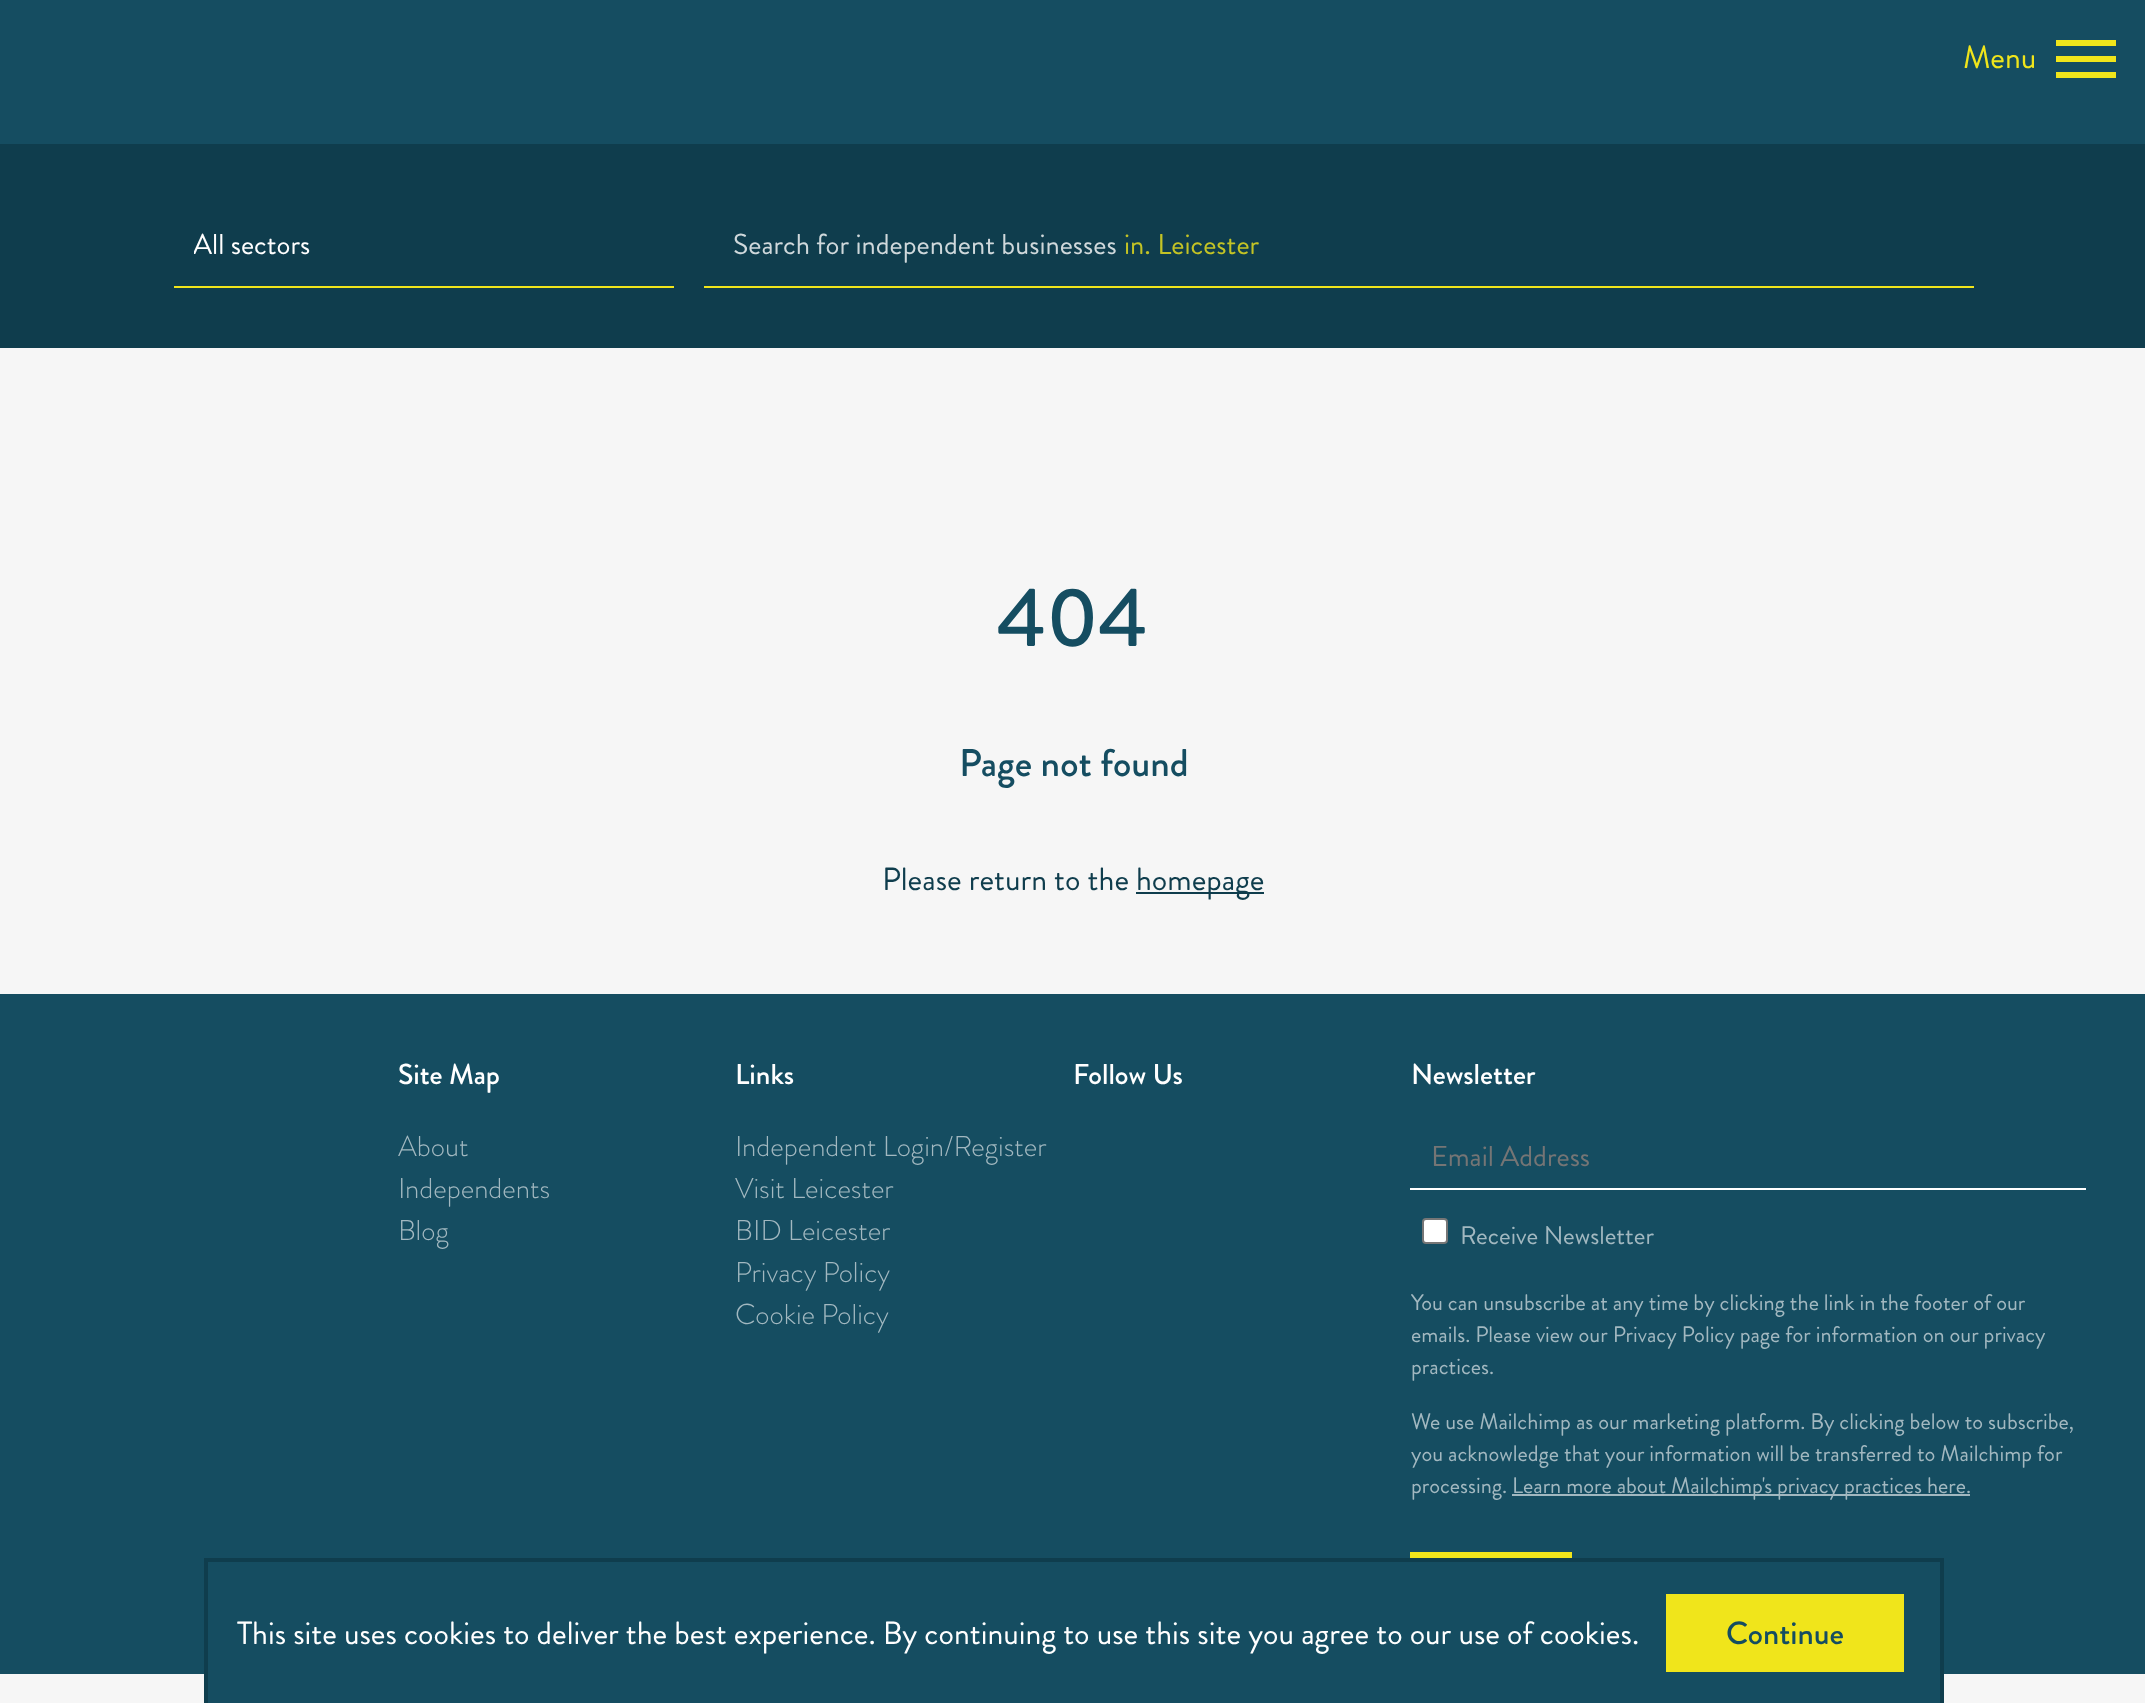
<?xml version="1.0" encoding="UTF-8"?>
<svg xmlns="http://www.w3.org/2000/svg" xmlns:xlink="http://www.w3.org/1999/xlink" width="2145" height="1703">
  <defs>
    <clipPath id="clip1"><rect x="194" y="224" width="460" height="42" /></clipPath>
  </defs>
  <rect width="100%" height="100%" fill="#f6f6f6" />
  <rect width="2145" height="144" fill="#154d61" />
  <rect x="2056" y="40" width="60" height="6" fill="#f0e51b" />
  <rect x="2056" y="56" width="60" height="6" fill="#f0e51b" />
  <rect x="2056" y="72" width="60" height="6" fill="#f0e51b" />
  <rect y="144" width="2145" height="204" fill="#0f3d4d" />
  <rect x="174" y="286" width="500" height="2" fill="#f0e51b" />
  <rect x="704" y="286" width="1270" height="2" fill="#f0e51b" />
  <rect x="1136" y="892" width="128" height="2" fill="#0f3d4d" />
  <rect y="994" width="2145" height="680" fill="#154d61" />
  <rect x="1410" y="1188" width="676" height="2" fill="#ffffff" />
  <rect x="1423" y="1219" width="24" height="24" rx="3" fill="#ffffff" stroke="#767676" stroke-width="2" />
  <rect x="1512" y="1494" width="458" height="2" fill="#a2b8c0" />
  <rect x="1410" y="1552" width="162" height="6" fill="#f0e51b" />
  <rect x="208" y="1674" width="1732" height="29" fill="#154d61" />
  <rect x="204" y="1558" width="1740" height="4" fill="#0f3d4d" />
  <rect x="1940" y="1558" width="4" height="145" fill="#0f3d4d" />
  <rect x="204" y="1558" width="4" height="145" fill="#0f3d4d" />
  <rect x="1666" y="1594" width="238" height="78" fill="#f0e51b" />
  <text x="1963" y="68" style="font-family: Brandon Grotesque; font-size: 32px; fill: #f0e51b">Menu</text>
  <g clip-path="url(#clip1)">
    <text x="193" y="254" style="font-family: Brandon Grotesque; font-size: 28.75px; fill: #ffffff">All sectors</text>
  </g>
  <text x="733" y="254" style="font-family: Brandon Grotesque; font-size: 28.75px; fill: #cfd8db">Search for independent businesses</text>
  <text x="1124" y="254" style="font-family: Brandon Grotesque; font-size: 28.75px; fill: #c3c325">in. Leicester</text>
  <text x="997" y="646" style="font-family: Brandon Grotesque; font-size: 83px; font-weight: 500; fill: #154d61">404</text>
  <text x="959" y="776" style="font-family: Brandon Grotesque; font-size: 38.5px; font-weight: 500; fill: #154d61">Page not found</text>
  <text x="882" y="890" style="font-family: Brandon Grotesque; font-size: 32px; fill: #0f3d4d">Please return to the</text>
  <text x="1136" y="890" style="font-family: Brandon Grotesque; font-size: 32px; fill: #0f3d4d">homepage</text>
  <text x="398" y="1084" style="font-family: Brandon Grotesque; font-size: 28.75px; font-weight: 500; fill: #ffffff">Site Map</text>
  <text x="398" y="1156" style="font-family: Brandon Grotesque; font-size: 28.75px; font-weight: 300; fill: #a2b8c0">About</text>
  <text x="398" y="1198" style="font-family: Brandon Grotesque; font-size: 28.75px; font-weight: 300; fill: #a2b8c0">Independents</text>
  <text x="398" y="1240" style="font-family: Brandon Grotesque; font-size: 28.75px; font-weight: 300; fill: #a2b8c0">Blog</text>
  <text x="735" y="1084" style="font-family: Brandon Grotesque; font-size: 28.75px; font-weight: 500; fill: #ffffff">Links</text>
  <text x="735" y="1156" style="font-family: Brandon Grotesque; font-size: 28.75px; font-weight: 300; fill: #a2b8c0">Independent Login/Register</text>
  <text x="735" y="1198" style="font-family: Brandon Grotesque; font-size: 28.75px; font-weight: 300; fill: #a2b8c0">Visit Leicester</text>
  <text x="735" y="1240" style="font-family: Brandon Grotesque; font-size: 28.75px; font-weight: 300; fill: #a2b8c0">BID Leicester</text>
  <text x="735" y="1282" style="font-family: Brandon Grotesque; font-size: 28.75px; font-weight: 300; fill: #a2b8c0">Privacy Policy</text>
  <text x="735" y="1324" style="font-family: Brandon Grotesque; font-size: 28.75px; font-weight: 300; fill: #a2b8c0">Cookie Policy</text>
  <text x="1073" y="1084" style="font-family: Brandon Grotesque; font-size: 28.75px; font-weight: 500; fill: #ffffff">Follow Us</text>
  <text x="1411" y="1084" style="font-family: Brandon Grotesque; font-size: 28.75px; font-weight: 500; fill: #ffffff">Newsletter</text>
  <text x="1431" y="1166" style="font-family: Brandon Grotesque; font-size: 28.75px; fill: #757575">Email Address</text>
  <text x="1460" y="1244" style="font-family: Brandon Grotesque; font-size: 25.5px; fill: #a2b8c0">Receive Newsletter</text>
  <text x="1411" y="1310" style="font-family: Brandon Grotesque; font-size: 22.4px; fill: #a2b8c0">You can unsubscribe at any time by clicking the link in the footer of our</text>
  <text x="1411" y="1342" style="font-family: Brandon Grotesque; font-size: 22.4px; fill: #a2b8c0">emails. Please view our Privacy Policy page for information on our privacy</text>
  <text x="1411" y="1374" style="font-family: Brandon Grotesque; font-size: 22.4px; fill: #a2b8c0">practices.</text>
  <text x="1411" y="1429" style="font-family: Brandon Grotesque; font-size: 22.4px; fill: #a2b8c0">We use Mailchimp as our marketing platform. By clicking below to subscribe,</text>
  <text x="1411" y="1461" style="font-family: Brandon Grotesque; font-size: 22.4px; fill: #a2b8c0">you acknowledge that your information will be transferred to Mailchimp for</text>
  <text x="1411" y="1493" style="font-family: Brandon Grotesque; font-size: 22.4px; fill: #a2b8c0">processing.</text>
  <text x="1512" y="1493" style="font-family: Brandon Grotesque; font-size: 22.4px; fill: #a2b8c0">Learn more about Mailchimp's privacy practices here.</text>
  <text x="237" y="1644" style="font-family: Brandon Grotesque; font-size: 32px; fill: #ffffff">This site uses cookies to deliver the best experience. By continuing to use this site you agree to our use of cookies.</text>
  <text x="1726" y="1644" style="font-family: Brandon Grotesque; font-size: 32px; font-weight: 500; fill: #154d61">Continue</text>
</svg>
